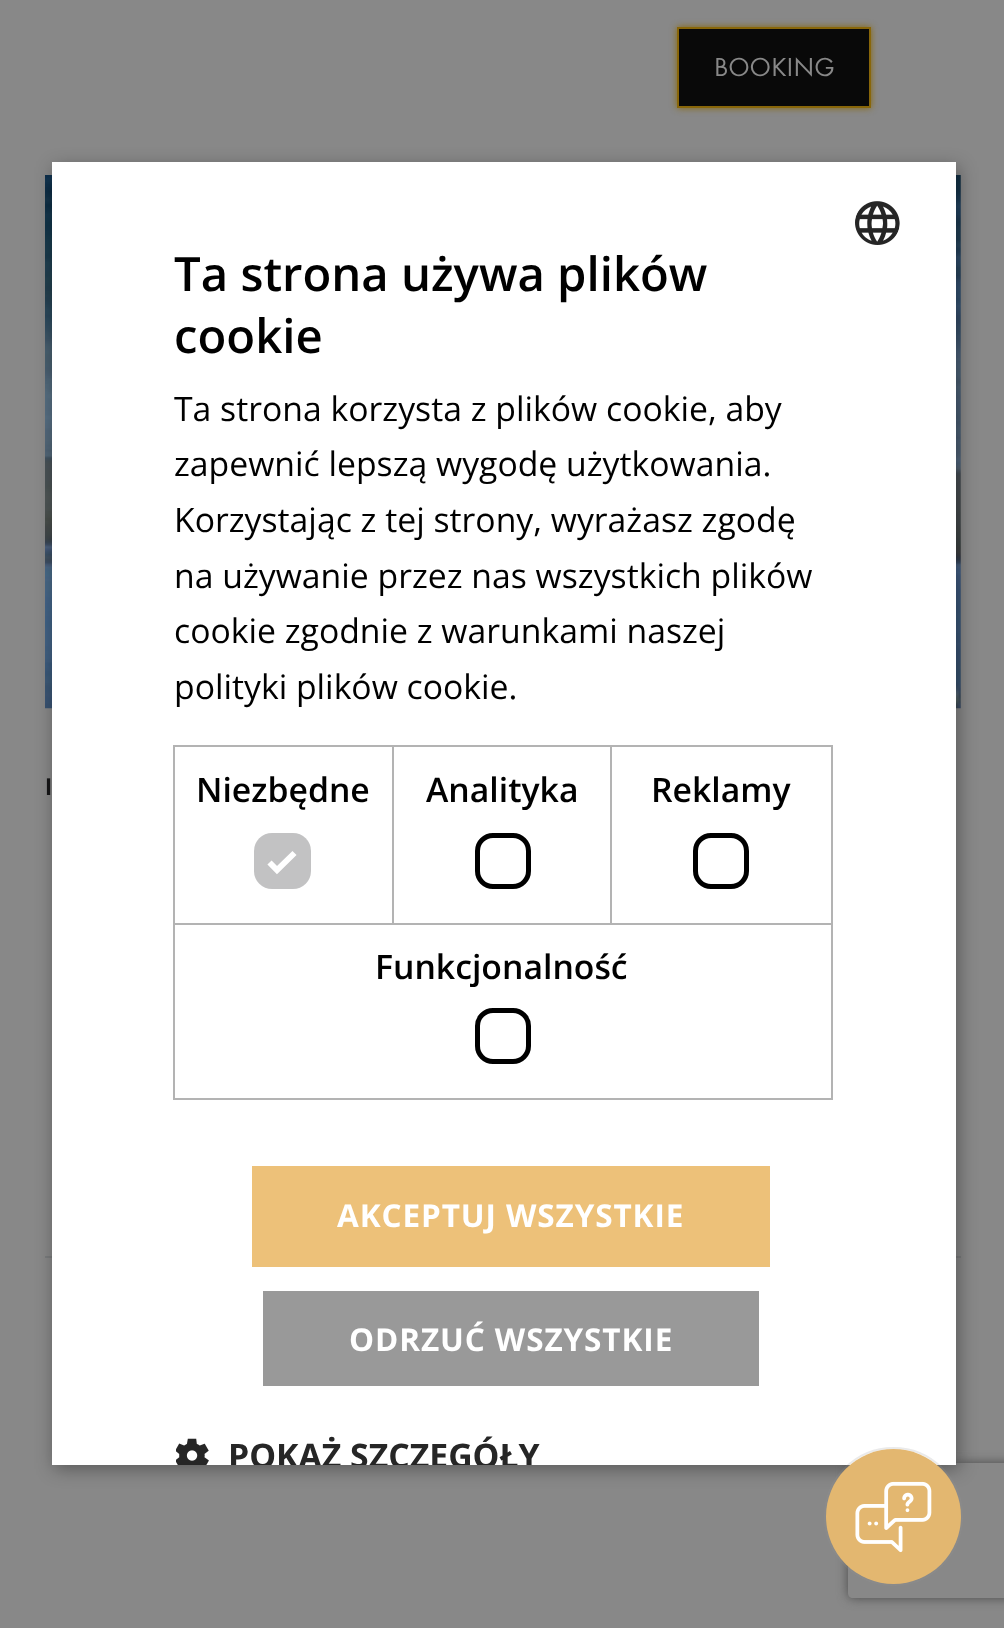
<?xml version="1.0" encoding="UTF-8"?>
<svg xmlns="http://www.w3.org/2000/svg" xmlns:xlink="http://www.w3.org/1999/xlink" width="1004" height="1628">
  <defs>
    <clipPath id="clip1"><path d="M 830 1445 h 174 v 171 h -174 z m 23 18 h 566 c 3 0 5 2 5 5 v 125 c 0 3 -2 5 -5 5 h -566 c -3 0 -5 -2 -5 -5 v -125 c 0 -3 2 -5 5 -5 z" clip-rule="evenodd" /></clipPath>
    <clipPath id="clip2"><rect x="52" y="162" width="904" height="1303" /></clipPath>
  </defs>
  <rect width="100%" height="100%" fill="#888888" />
  <rect x="677" y="27" width="194" height="81" fill="#886609" filter="blur(3.5px)" />
  <rect x="678" y="28" width="192" height="79" fill="#090909" stroke="#886609" stroke-width="2" />
  <image x="45" y="175" width="916" height="534" xlink:href="image1.png" />
  <rect x="45" y="1256" width="916" height="2" fill="#7a7c7d" />
  <rect x="54" y="167" width="905" height="1302" fill="#000000" fill-opacity="0.35" filter="blur(9px)" />
  <g clip-path="url(#clip1)">
    <rect x="848" y="1463" width="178" height="135" rx="5" fill="#494949" filter="blur(5.5px)" />
  </g>
  <rect x="52" y="162" width="904" height="1303" fill="#ffffff" />
  <image x="855" y="201" width="45" height="44" xlink:href="image2.png" />
  <rect x="174" y="746" width="219" height="178" fill="none" stroke="#b3b3b3" stroke-width="2" />
  <rect x="254" y="833" width="57" height="56" rx="18" fill="#c2c2c3" />
  <path d="M 269.5 862.5 l 7.5 7.5 l 17.5 -17" fill="none" stroke="#ffffff" stroke-width="5.9" />
  <rect x="393" y="746" width="218" height="178" fill="none" stroke="#b3b3b3" stroke-width="2" />
  <rect x="477.5" y="835.5" width="51" height="51" rx="15.5" fill="none" stroke="#000000" stroke-width="5" />
  <rect x="611" y="746" width="221" height="178" fill="none" stroke="#b3b3b3" stroke-width="2" />
  <rect x="695.5" y="835.5" width="51" height="51" rx="15.5" fill="none" stroke="#000000" stroke-width="5" />
  <rect x="174" y="924" width="658" height="175" fill="none" stroke="#b3b3b3" stroke-width="2" />
  <rect x="477.5" y="1010.5" width="51" height="51" rx="15.5" fill="none" stroke="#000000" stroke-width="5" />
  <rect x="252" y="1166" width="518" height="101" fill="#edc179" />
  <rect x="263" y="1291" width="496" height="95" fill="#999999" />
  <image x="176" y="1438" width="33" height="27" xlink:href="image3.png" />
  <circle cx="893.5" cy="1516.5" r="68.5" fill="none" stroke="#969696" stroke-opacity="0.2" stroke-width="2" />
  <circle cx="893.5" cy="1516.5" r="67.5" fill="#e3b770" />
  <image x="855" y="1481" width="77" height="72" xlink:href="image4.png" />
  <text x="714" y="76" style="font-family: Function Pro; font-size: 27px; fill: #888888">BOOKING</text>
  <text x="45" y="795" style="font-family: Function Pro; font-size: 25px; font-weight: 600; fill: #141415">I</text>
  <text x="174" y="291" style="font-family: Open Sans; font-size: 47.25px; font-weight: 600; fill: #000000">Ta strona używa plików</text>
  <text x="174" y="353" style="font-family: Open Sans; font-size: 47.25px; font-weight: 600; fill: #000000">cookie</text>
  <text x="174" y="421" style="font-family: Open Sans; font-size: 33.75px; fill: #000000">Ta strona korzysta z plików cookie, aby</text>
  <text x="174" y="476" style="font-family: Open Sans; font-size: 33.75px; fill: #000000">zapewnić lepszą wygodę użytkowania.</text>
  <text x="174" y="532" style="font-family: Open Sans; font-size: 33.75px; fill: #000000">Korzystając z tej strony, wyrażasz zgodę</text>
  <text x="174" y="588" style="font-family: Open Sans; font-size: 33.75px; fill: #000000">na używanie przez nas wszystkich plików</text>
  <text x="174" y="643" style="font-family: Open Sans; font-size: 33.75px; fill: #000000">cookie zgodnie z warunkami naszej</text>
  <text x="174" y="699" style="font-family: Open Sans; font-size: 33.75px; fill: #000000">polityki plików cookie.</text>
  <text x="196" y="802" style="font-family: Open Sans; font-size: 33.75px; font-weight: 600; fill: #000000">Niezbędne</text>
  <text x="426" y="802" style="font-family: Open Sans; font-size: 33.75px; font-weight: 600; fill: #000000">Analityka</text>
  <text x="651" y="802" style="font-family: Open Sans; font-size: 33.75px; font-weight: 600; fill: #000000">Reklamy</text>
  <text x="375" y="979" style="font-family: Open Sans; font-size: 33.75px; font-weight: 600; fill: #000000">Funkcjonalność</text>
  <text x="337" y="1227" style="font-family: Open Sans; font-size: 31.5px; font-weight: bold; letter-spacing: 0.9px; fill: #ffffff">AKCEPTUJ WSZYSTKIE</text>
  <text x="349" y="1351" style="font-family: Open Sans; font-size: 31.5px; font-weight: bold; letter-spacing: 0.9px; fill: #ffffff">ODRZUĆ WSZYSTKIE</text>
  <g clip-path="url(#clip2)">
    <text x="228" y="1468" style="font-family: Open Sans; font-size: 33.75px; font-weight: bold; fill: #262626">POKAŻ SZCZEGÓŁY</text>
  </g>
</svg>
